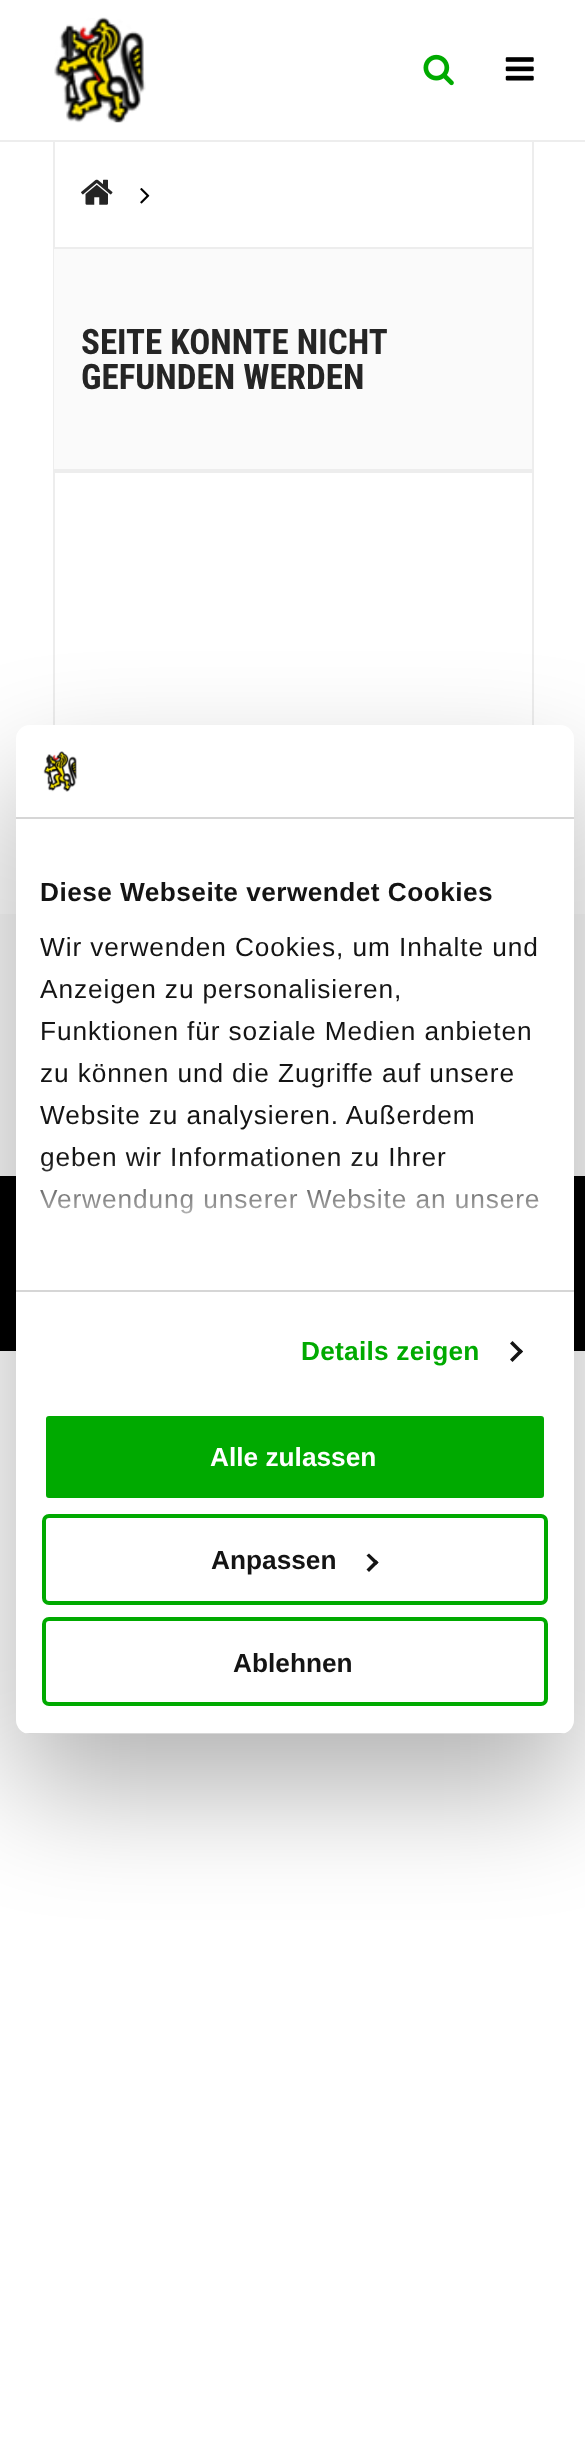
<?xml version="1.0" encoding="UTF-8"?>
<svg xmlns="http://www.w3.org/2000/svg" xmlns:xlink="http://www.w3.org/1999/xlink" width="585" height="2460">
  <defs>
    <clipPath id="clip1"><rect x="16" y="725" width="558" height="1009" rx="14" /></clipPath>
    <linearGradient id="g1" gradientUnits="userSpaceOnUse" x1="283" y1="1290" x2="283" y2="1159"><stop offset="0" stop-color="#ffffff" /><stop offset="0.5" stop-color="#ffffff" stop-opacity="0.8" /><stop offset="1" stop-color="#ffffff" stop-opacity="0" /></linearGradient>
  </defs>
  <rect width="100%" height="100%" fill="#ffffff" />
  <rect y="140" width="585" height="2" fill="#ededed" />
  <image x="54" y="17" width="92" height="106" xlink:href="image1.png" />
  <image x="423" y="54" width="31" height="32" xlink:href="image2.png" />
  <image x="505" y="57" width="29" height="24" xlink:href="image3.png" />
  <rect x="532" y="142" width="2" height="583" fill="#ededed" />
  <rect x="53" y="471" width="481" height="2" fill="#ededed" />
  <rect x="53" y="142" width="2" height="583" fill="#ededed" />
  <image x="81" y="179" width="32" height="26" xlink:href="image4.png" />
  <image x="140" y="188" width="10" height="16" xlink:href="image5.png" />
  <rect x="54" y="247" width="478" height="2" fill="#ededed" />
  <rect x="54" y="469" width="478" height="2" fill="#ededed" />
  <rect x="54" y="249" width="478" height="220" fill="#fafafa" />
  <rect y="914" width="585" height="262" fill="#fafafa" />
  <rect y="1176" width="585" height="175" fill="#000000" />
  <rect x="16" y="781" width="558" height="1009" rx="14" fill="#000000" fill-opacity="0.3" filter="blur(59.5px)" />
  <rect x="16" y="725" width="558" height="1009" rx="14" fill="#ffffff" />
  <rect x="16" y="817" width="558" height="2" fill="#d6d6d6" />
  <image x="43" y="751" width="35" height="41" xlink:href="image6.png" />
  <rect x="16" y="1290" width="558" height="2" fill="#d6d6d6" />
  <path d="M 512.5 1341 l 10.5 10.5 l -2.5 2.5 l -10.5 -10.5 z" fill="#141414" />
  <path d="M 520.5 1349 l 2.5 2.5 l -10.5 10.5 l -2.5 -2.5 z" fill="#141414" />
  <g clip-path="url(#clip1)">
    <rect x="25" y="1733" width="540" height="1" fill="#d6d6d6" />
  </g>
  <rect x="44" y="1414" width="502" height="86" rx="5" fill="#00aa00" stroke="#ffffff" stroke-width="4" />
  <rect x="44" y="1516" width="502" height="87" rx="5" fill="none" stroke="#00aa00" stroke-width="4" />
  <path d="M 369 1553.5 l 9.5 9 l -2.5 2.5 l -9.5 -9.5 z" fill="#141414" />
  <path d="M 376 1560 l 2.5 2.5 l -9.5 9.5 l -2.5 -2.5 z" fill="#141414" />
  <rect x="44" y="1619" width="502" height="85" rx="5" fill="none" stroke="#00aa00" stroke-width="4" />
  <text x="81" y="354" style="font-family: Roboto Condensed; font-size: 35px; font-weight: bold; fill: #252525">SEITE KONNTE NICHT</text>
  <text x="81" y="389" style="font-family: Roboto Condensed; font-size: 35px; font-weight: bold; fill: #252525">GEFUNDEN WERDEN</text>
  <text x="40" y="901" style="font-family: Liberation Sans; font-size: 26.25px; font-weight: bold; letter-spacing: 0.45px; fill: #141414">Diese Webseite verwendet Cookies</text>
  <text x="40" y="956" style="font-family: Liberation Sans; font-size: 26.25px; letter-spacing: 0.9px; fill: #141414">Wir verwenden Cookies, um Inhalte und</text>
  <text x="40" y="998" style="font-family: Liberation Sans; font-size: 26.25px; letter-spacing: 0.9px; fill: #141414">Anzeigen zu personalisieren,</text>
  <text x="40" y="1040" style="font-family: Liberation Sans; font-size: 26.25px; letter-spacing: 0.9px; fill: #141414">Funktionen für soziale Medien anbieten</text>
  <text x="40" y="1082" style="font-family: Liberation Sans; font-size: 26.25px; letter-spacing: 0.9px; fill: #141414">zu können und die Zugriffe auf unsere</text>
  <text x="40" y="1124" style="font-family: Liberation Sans; font-size: 26.25px; letter-spacing: 0.9px; fill: #141414">Website zu analysieren. Außerdem</text>
  <text x="40" y="1166" style="font-family: Liberation Sans; font-size: 26.25px; letter-spacing: 0.9px; fill: #141414">geben wir Informationen zu Ihrer</text>
  <text x="40" y="1208" style="font-family: Liberation Sans; font-size: 26.25px; letter-spacing: 0.9px; fill: #141414">Verwendung unserer Website an unsere</text>
  <rect x="40" y="1161" width="498" height="53" fill="url(#g1)" />
  <text x="301" y="1360" style="font-family: Liberation Sans; font-size: 26.25px; font-weight: bold; letter-spacing: 0.25px; fill: #00aa00">Details zeigen</text>
  <text x="210" y="1466" style="font-family: Liberation Sans; font-size: 26.25px; font-weight: bold; fill: #ffffff">Alle zulassen</text>
  <text x="211" y="1569" style="font-family: Liberation Sans; font-size: 26.25px; font-weight: bold; fill: #141414">Anpassen</text>
  <text x="233" y="1672" style="font-family: Liberation Sans; font-size: 26.25px; font-weight: bold; fill: #141414">Ablehnen</text>
</svg>
